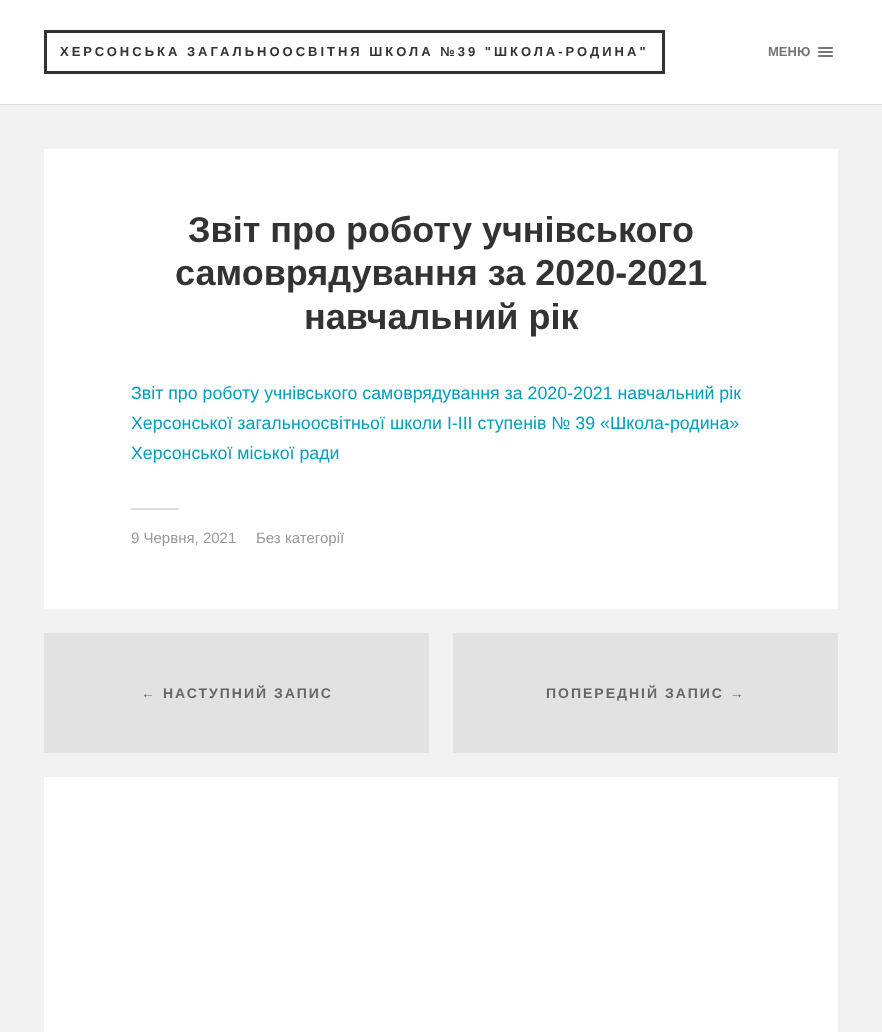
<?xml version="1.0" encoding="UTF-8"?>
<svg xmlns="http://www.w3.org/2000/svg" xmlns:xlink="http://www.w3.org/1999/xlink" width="882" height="1032">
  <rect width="100%" height="100%" fill="#f2f2f2" />
  <rect width="882" height="104" fill="#ffffff" />
  <rect y="104" width="882" height="1" fill="#dddddd" />
  <rect x="45.5" y="31.5" width="618" height="41" fill="none" stroke="#333333" stroke-width="3" />
  <rect x="818" y="47" width="15" height="2" rx="1" fill="#767676" />
  <rect x="818" y="51" width="15" height="2" rx="1" fill="#767676" />
  <rect x="818" y="55" width="15" height="2" rx="1" fill="#767676" />
  <rect x="44" y="149" width="794" height="883" fill="#ffffff" />
  <rect x="131" y="508" width="48" height="2" fill="#dddddd" />
  <rect x="44" y="609" width="794" height="168" fill="#f2f2f2" />
  <rect x="44" y="633" width="385" height="120" fill="#e2e2e2" />
  <rect x="453" y="633" width="385" height="120" fill="#e2e2e2" />
  <text x="60" y="56" style="font-family: Liberation Sans; font-size: 13px; font-weight: bold; letter-spacing: 3px; fill: #333333">ХЕРСОНСЬКА ЗАГАЛЬНООСВІТНЯ ШКОЛА №39 "ШКОЛА-РОДИНА"</text>
  <text x="768" y="56" style="font-family: Liberation Sans; font-size: 13px; font-weight: bold; fill: #767676">МЕНЮ</text>
  <text x="188" y="242" style="font-family: Liberation Sans; font-size: 36px; font-weight: bold; fill: #333333">Звіт про роботу учнівського</text>
  <text x="175" y="285" style="font-family: Liberation Sans; font-size: 36px; font-weight: bold; fill: #333333">самоврядування за 2020-2021</text>
  <text x="304" y="329" style="font-family: Liberation Sans; font-size: 36px; font-weight: bold; fill: #333333">навчальний рік</text>
  <text x="131" y="399" style="font-family: Liberation Sans; font-size: 17.8px; fill: #019ebd">Звіт про роботу учнівського самоврядування за 2020-2021 навчальний рік</text>
  <text x="131" y="429" style="font-family: Liberation Sans; font-size: 17.8px; fill: #019ebd">Херсонської загальноосвітньої школи І-ІІІ ступенів № 39 «Школа-родина»</text>
  <text x="131" y="459" style="font-family: Liberation Sans; font-size: 17.8px; fill: #019ebd">Херсонської міської ради</text>
  <text x="131" y="543" style="font-family: Liberation Sans; font-size: 15px; fill: #999999">9 Червня, 2021</text>
  <text x="256" y="543" style="font-family: Liberation Sans; font-size: 15px; fill: #999999">Без категорії</text>
  <text x="141" y="698" style="font-family: Liberation Sans; font-size: 14px; font-weight: bold; letter-spacing: 2px; fill: #666666">← НАСТУПНИЙ ЗАПИС</text>
  <text x="546" y="698" style="font-family: Liberation Sans; font-size: 14px; font-weight: bold; letter-spacing: 2px; fill: #666666">ПОПЕРЕДНІЙ ЗАПИС →</text>
</svg>
